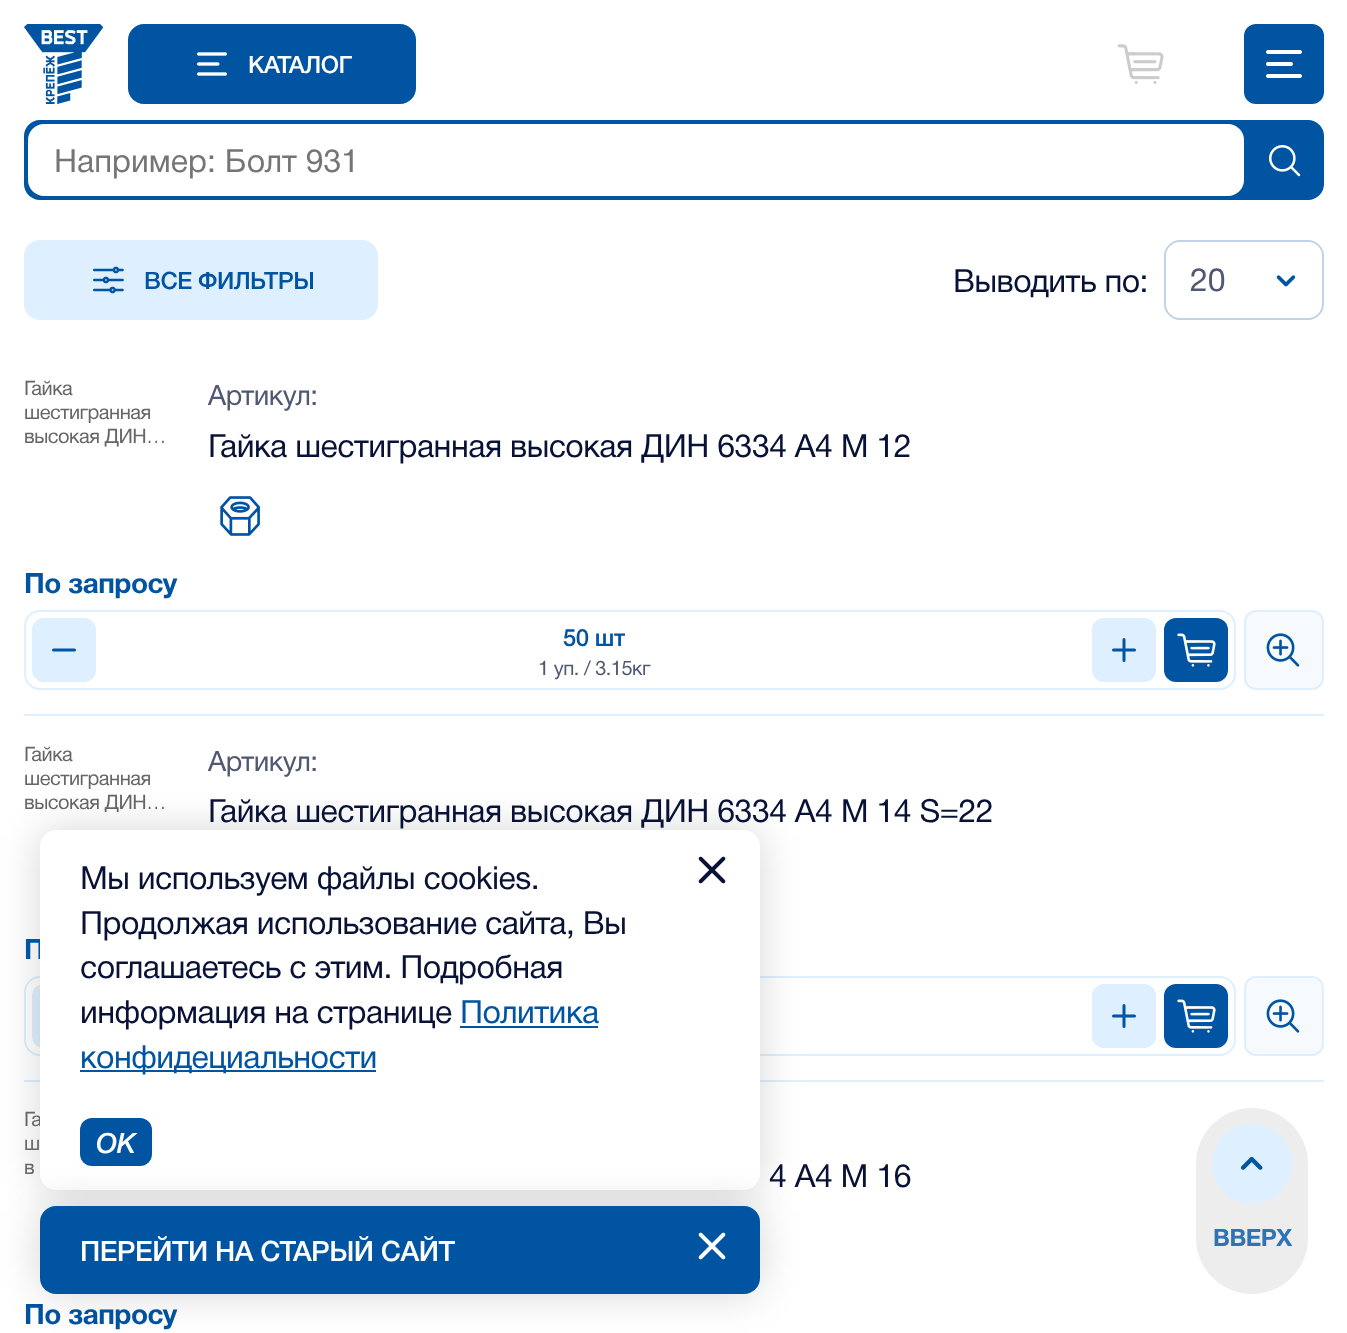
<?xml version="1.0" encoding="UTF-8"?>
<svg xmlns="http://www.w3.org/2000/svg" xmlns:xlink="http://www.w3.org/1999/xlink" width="1347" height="1333">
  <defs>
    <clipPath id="clip1"><rect x="24" y="740" width="160" height="72" /></clipPath>
  </defs>
  <rect width="100%" height="100%" fill="#ffffff" />
  <image x="24" y="24" width="80" height="80" xlink:href="image1.png" />
  <rect x="128" y="24" width="288" height="80" rx="16" fill="#0154a2" />
  <image x="197" y="52" width="30" height="24" xlink:href="image2.png" />
  <image x="1117" y="44" width="47" height="40" xlink:href="image3.png" />
  <rect x="1244" y="24" width="80" height="80" rx="12" fill="#0154a2" />
  <image x="1266" y="50" width="36" height="28" xlink:href="image4.png" />
  <rect x="24" y="120" width="1300" height="80" rx="16" fill="#0154a2" />
  <rect x="28" y="124" width="1216" height="72" rx="16" fill="#ffffff" />
  <image x="1269" y="145" width="32" height="32" xlink:href="image5.png" />
  <rect x="24" y="240" width="354" height="80" rx="16" fill="#deefff" />
  <image x="93" y="266" width="31" height="28" xlink:href="image6.png" />
  <rect x="1165" y="241" width="158" height="78" rx="15" fill="none" stroke="#c2d3e8" stroke-width="2" />
  <image x="1276" y="275" width="20" height="12" xlink:href="image7.png" />
  <rect x="24" y="714" width="1300" height="2" fill="#deefff" />
  <image x="220" y="496" width="40" height="40" xlink:href="image8.png" />
  <rect x="25" y="611" width="1210" height="78" rx="15" fill="none" stroke="#deefff" stroke-width="2" />
  <rect x="32" y="618" width="64" height="64" rx="12" fill="#deefff" />
  <path d="M 74.5 650 h -21" fill="none" stroke="#0154a2" stroke-width="3" stroke-linecap="round" />
  <rect x="1092" y="618" width="64" height="64" rx="12" fill="#deefff" />
  <path d="M 1124 639.5 v 21 m 10.5 -10.5 h -21" fill="none" stroke="#0154a2" stroke-width="3" stroke-linecap="round" />
  <rect x="1164" y="618" width="64" height="64" rx="12" fill="#0154a2" />
  <image x="1177" y="633" width="39" height="34" xlink:href="image9.png" />
  <rect x="1245" y="611" width="78" height="78" rx="11" fill="#f7fafc" stroke="#deefff" stroke-width="2" />
  <image x="1266" y="633" width="34" height="34" xlink:href="image10.png" />
  <rect x="24" y="1080" width="1300" height="2" fill="#deefff" />
  <rect x="25" y="977" width="1210" height="78" rx="15" fill="none" stroke="#deefff" stroke-width="2" />
  <rect x="32" y="984" width="64" height="64" rx="12" fill="#deefff" />
  <rect x="1092" y="984" width="64" height="64" rx="12" fill="#deefff" />
  <path d="M 1124 1005.5 v 21 m 10.5 -10.5 h -21" fill="none" stroke="#0154a2" stroke-width="3" stroke-linecap="round" />
  <rect x="1164" y="984" width="64" height="64" rx="12" fill="#0154a2" />
  <image x="1177" y="999" width="39" height="34" xlink:href="image9.png" />
  <rect x="1245" y="977" width="78" height="78" rx="11" fill="#f7fafc" stroke="#deefff" stroke-width="2" />
  <image x="1266" y="999" width="34" height="34" xlink:href="image10.png" />
  <rect x="40" y="830" width="720" height="360" rx="16" fill="#000000" fill-opacity="0.16" filter="blur(20px)" />
  <rect x="1196" y="1108" width="112" height="186" rx="56" fill="#ededed" />
  <path d="M 1212 1164 c 0 -22 18 -40 40 -40 c 22 0 40 18 40 40 c 0 22 -18 40 -40 40 c -22 0 -40 -18 -40 -40 z" fill="#deefff" />
  <image x="1240" y="1156" width="23" height="14" xlink:href="image13.png" />
  <text x="248" y="73" style="font-family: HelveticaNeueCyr; font-size: 24px; font-weight: 500; letter-spacing: -0.5px; fill: #ffffff">КАТАЛОГ</text>
  <text x="54" y="172" style="font-family: HelveticaNeueCyr; font-size: 32px; fill: #757575">Например: Болт 931</text>
  <text x="144" y="289" style="font-family: HelveticaNeueCyr; font-size: 24px; font-weight: 500; letter-spacing: -0.5px; fill: #0154a2">ВСЕ ФИЛЬТРЫ</text>
  <text x="953" y="292" style="font-family: HelveticaNeueCyr; font-size: 32px; letter-spacing: -0.5px; fill: #081236">Выводить по:</text>
  <text x="1190" y="291" style="font-family: HelveticaNeueCyr; font-size: 32px; fill: #505872">20</text>
  <text x="24" y="395" style="font-family: HelveticaNeueCyr; font-size: 20px; letter-spacing: -0.5px; fill: #666666">Гайка</text>
  <text x="24" y="419" style="font-family: HelveticaNeueCyr; font-size: 20px; letter-spacing: -0.5px; fill: #666666">шестигранная</text>
  <text x="24" y="443" style="font-family: HelveticaNeueCyr; font-size: 20px; letter-spacing: -0.5px; fill: #666666">высокая ДИН…</text>
  <text x="208" y="405" style="font-family: HelveticaNeueCyr; font-size: 28px; letter-spacing: -0.5px; fill: #505872">Артикул:</text>
  <text x="208" y="457" style="font-family: HelveticaNeueCyr; font-size: 32px; letter-spacing: -0.5px; fill: #081236">Гайка шестигранная высокая ДИН 6334 А4 M 12</text>
  <text x="24" y="593" style="font-family: HelveticaNeueCyr; font-size: 28px; font-weight: bold; letter-spacing: -0.5px; fill: #0154a2">По запросу</text>
  <text x="563" y="646" style="font-family: HelveticaNeueCyr; font-size: 24px; font-weight: 500; letter-spacing: -0.5px; fill: #0154a2">50 шт</text>
  <text x="538" y="675" style="font-family: HelveticaNeueCyr; font-size: 20px; letter-spacing: -0.5px; fill: #505872">1 уп. / 3.15кг</text>
  <text x="24" y="761" style="font-family: HelveticaNeueCyr; font-size: 20px; letter-spacing: -0.5px; fill: #666666">Гайка</text>
  <text x="24" y="785" style="font-family: HelveticaNeueCyr; font-size: 20px; letter-spacing: -0.5px; fill: #666666">шестигранная</text>
  <g clip-path="url(#clip1)">
    <text x="24" y="809" style="font-family: HelveticaNeueCyr; font-size: 20px; letter-spacing: -0.5px; fill: #666666">высокая ДИН…</text>
  </g>
  <text x="208" y="771" style="font-family: HelveticaNeueCyr; font-size: 28px; letter-spacing: -0.5px; fill: #505872">Артикул:</text>
  <text x="208" y="822" style="font-family: HelveticaNeueCyr; font-size: 32px; letter-spacing: -0.5px; fill: #081236">Гайка шестигранная высокая ДИН 6334 А4 M 14 S=22</text>
  <text x="24" y="959" style="font-family: HelveticaNeueCyr; font-size: 28px; font-weight: bold; letter-spacing: -0.5px; fill: #0154a2">П</text>
  <text x="24" y="1126" style="font-family: HelveticaNeueCyr; font-size: 20px; letter-spacing: -0.5px; fill: #666666">Га</text>
  <text x="24" y="1150" style="font-family: HelveticaNeueCyr; font-size: 20px; letter-spacing: -0.5px; fill: #666666">ш</text>
  <text x="24" y="1174" style="font-family: HelveticaNeueCyr; font-size: 20px; letter-spacing: -0.5px; fill: #666666">в</text>
  <text x="769" y="1187" style="font-family: HelveticaNeueCyr; font-size: 32px; letter-spacing: -0.5px; fill: #081236">4 А4 M 16</text>
  <text x="24" y="1324" style="font-family: HelveticaNeueCyr; font-size: 28px; font-weight: bold; letter-spacing: -0.5px; fill: #0154a2">По запросу</text>
  <rect x="40" y="830" width="720" height="360" rx="16" fill="#ffffff" />
  <text x="80" y="889" style="font-family: HelveticaNeueCyr; font-size: 32px; letter-spacing: -0.5px; fill: #081236">Мы используем файлы cookies.</text>
  <text x="80" y="934" style="font-family: HelveticaNeueCyr; font-size: 32px; letter-spacing: -0.5px; fill: #081236">Продолжая использование сайта, Вы</text>
  <text x="80" y="978" style="font-family: HelveticaNeueCyr; font-size: 32px; letter-spacing: -0.5px; fill: #081236">соглашаетесь с этим. Подробная</text>
  <text x="80" y="1023" style="font-family: HelveticaNeueCyr; font-size: 32px; letter-spacing: -0.5px; fill: #081236">информация на странице</text>
  <text x="460" y="1023" style="font-family: HelveticaNeueCyr; font-size: 32px; letter-spacing: -0.5px; fill: #0154a2">Политика</text>
  <rect x="460" y="1026" width="138" height="2" fill="#0154a2" />
  <rect x="80" y="1070" width="296" height="2" fill="#0154a2" />
  <text x="80" y="1068" style="font-family: HelveticaNeueCyr; font-size: 32px; letter-spacing: -0.5px; fill: #0154a2">конфидециальности</text>
  <image x="698" y="856" width="28" height="28" xlink:href="image11.png" />
  <rect x="80" y="1118" width="72" height="48" rx="12" fill="#0154a2" />
  <text x="96" y="1153" style="font-family: HelveticaNeueCyr; font-size: 28px; font-weight: 500; font-style: italic; letter-spacing: -0.5px; fill: #ffffff">ОК</text>
  <rect x="40" y="1206" width="720" height="88" rx="16" fill="#000000" fill-opacity="0.16" filter="blur(20px)" />
  <rect x="40" y="1206" width="720" height="88" rx="16" fill="#0154a2" />
  <text x="80" y="1261" style="font-family: HelveticaNeueCyr; font-size: 28px; font-weight: 500; letter-spacing: -0.5px; fill: #ffffff">ПЕРЕЙТИ НА СТАРЫЙ САЙТ</text>
  <image x="698" y="1232" width="28" height="28" xlink:href="image12.png" />
  <text x="1213" y="1246" style="font-family: HelveticaNeueCyr; font-size: 24px; font-weight: bold; letter-spacing: -0.5px; fill: #2d73b5">ВВЕРХ</text>
</svg>
